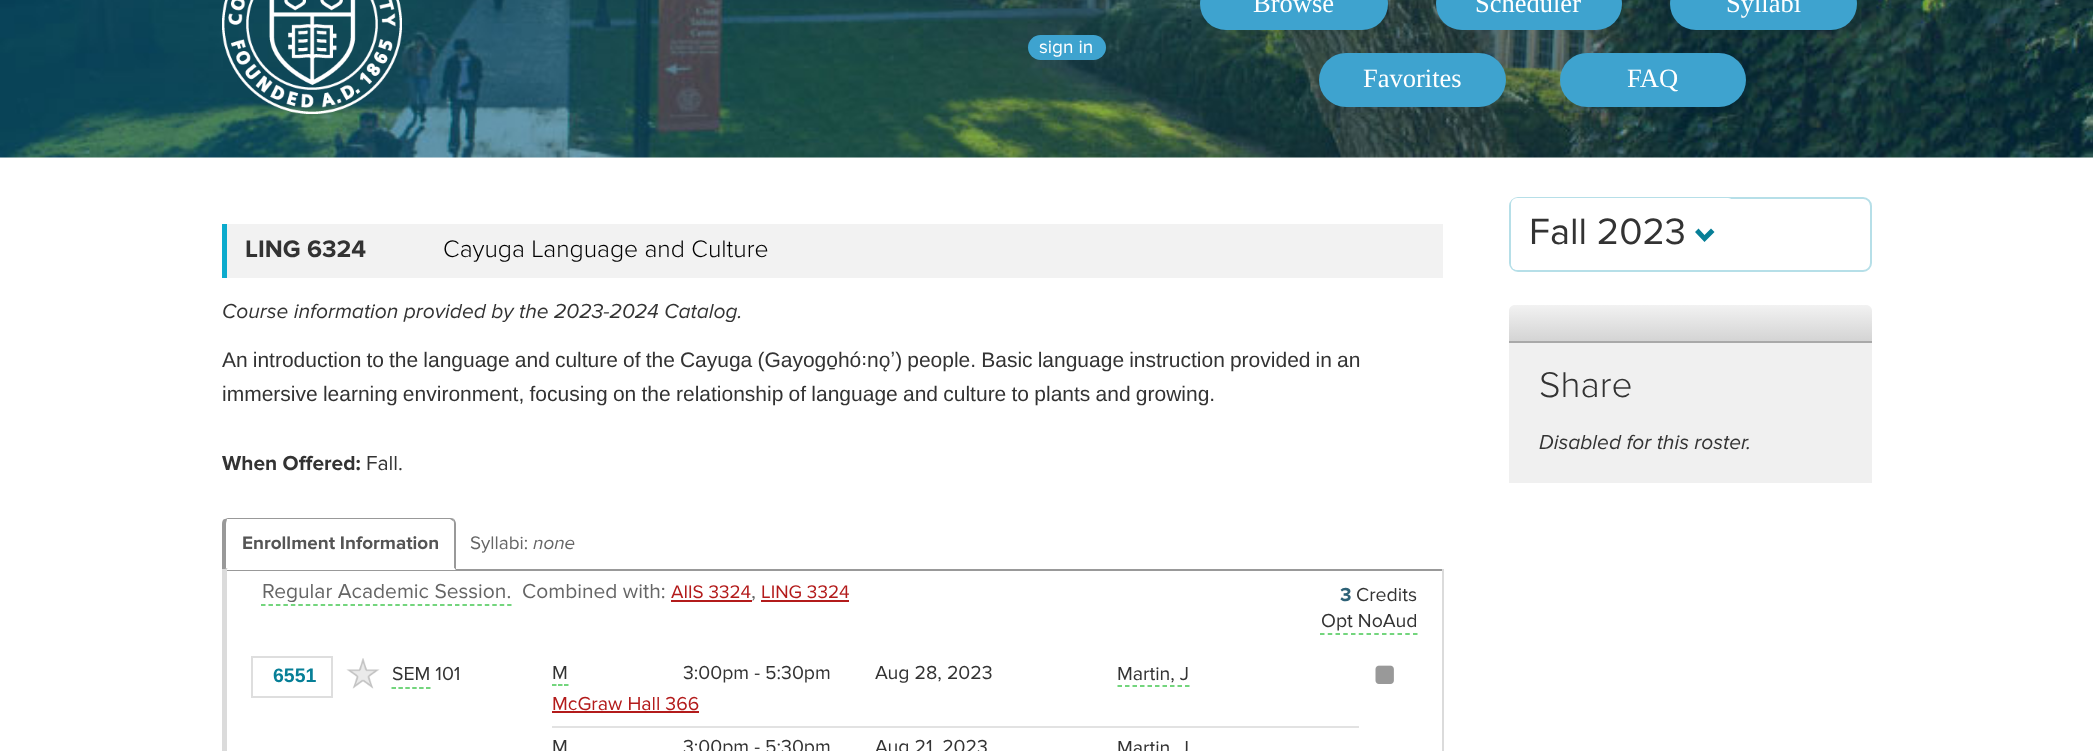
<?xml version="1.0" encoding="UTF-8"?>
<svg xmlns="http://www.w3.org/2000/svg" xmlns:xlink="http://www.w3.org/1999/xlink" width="2093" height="751">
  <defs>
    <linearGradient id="g1" gradientUnits="userSpaceOnUse" x1="1691" y1="305" x2="1691" y2="341"><stop offset="0" stop-color="#f2f2f2" /><stop offset="1" stop-color="#d4d4d4" /></linearGradient>
  </defs>
  <rect width="100%" height="100%" fill="#ffffff" />
  <rect y="157" width="2093" height="1" fill="#f6f6f6" />
  <image x="0" y="0" width="2093" height="158" xlink:href="image1.png" />
  <image x="222" y="0" width="180" height="114" xlink:href="image2.png" />
  <rect x="1028" y="35" width="78" height="25" rx="12.5" fill="#3ea3cf" />
  <rect x="1200" y="-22" width="188" height="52" rx="26" fill="#3ea3cf" />
  <rect x="1436" y="-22" width="186" height="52" rx="26" fill="#3ea3cf" />
  <rect x="1670" y="-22" width="187" height="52" rx="26" fill="#3ea3cf" />
  <rect x="1319" y="53" width="187" height="54" rx="27" fill="#3ea3cf" />
  <rect x="1560" y="53" width="186" height="54" rx="27" fill="#3ea3cf" />
  <rect x="1510" y="198" width="361" height="73" rx="8" fill="none" stroke="#b6dfe8" stroke-width="2" />
  <rect x="1511" y="198" width="223" height="72" rx="6" fill="#ffffff" />
  <path d="M 1714.5 232 l -10 10 l -9.5 -10 l 3.5 -3.5 l 6 6.5 l 6.5 -6.5 z" fill="#077f97" />
  <rect x="227" y="224" width="1216" height="54" fill="#f2f2f2" />
  <rect x="222" y="224" width="5" height="54" fill="#0cabcd" />
  <rect x="222" y="569" width="1221" height="2" fill="#999999" />
  <path d="M 228 518 l -3 1 h 2 h 223 l 3 2 l 1 -2 c -1 -1 -3 -1 -4 -1 z" fill="#999999" />
  <path d="M 454 519 c 1 1 2 3 2 5 v 46 l -2 -2 v -44 c 0 -1 0 -3 -1 -3 z" fill="#999999" />
  <path d="M 456 570 l -2 -2 h -226 l -6 2 z" fill="#ffffff" />
  <path d="M 222 570 l 6 -2 h -2 v -44 c 0 -2 1 -4 1 -5 h -2 c -2 0 -3 2 -3 5 z" fill="#999999" />
  <rect x="1442" y="569" width="2" height="182" fill="#dbdbdb" />
  <rect x="222" y="569" width="5" height="182" fill="#dbdbdb" />
  <path d="M 261 605 h 250.5" fill="none" stroke="#46c753" stroke-width="1.5" stroke-dasharray="4.5 2.96" />
  <rect x="671" y="600" width="81" height="2" fill="#b31b1b" />
  <rect x="761" y="600" width="88" height="2" fill="#b31b1b" />
  <path d="M 1320 634 h 97.5" fill="none" stroke="#46c753" stroke-width="1.5" stroke-dasharray="4.5 3.25" />
  <rect x="252" y="657" width="80" height="40" fill="none" stroke="#dedede" stroke-width="2" />
  <image x="346" y="658" width="34" height="31" xlink:href="image3.png" />
  <path d="M 391.5 688 h 39" fill="none" stroke="#46c753" stroke-width="1.5" stroke-dasharray="4.5 2.4" />
  <path d="M 552 685 h 4.5 m 1.5 0 h 4.5 m 1.5 0 h 4.5" fill="none" stroke="#46c753" stroke-width="1.5" />
  <rect x="552" y="711" width="147" height="2" fill="#b31b1b" />
  <path d="M 1117.5 686 h 72" fill="none" stroke="#46c753" stroke-width="1.5" stroke-dasharray="4.5 3" />
  <rect x="552" y="726" width="807" height="2" fill="#e2e2e2" />
  <image x="1375" y="665" width="19" height="19" xlink:href="image4.png" />
  <path d="M 1518 305 h 345 c 5 0 9 4 9 9 v 169 h -363 v -169 c 0 -5 4 -9 9 -9 z" fill="#f0f0f0" />
  <path d="M 1515 305 h 351 c 3.5 0 6 2.5 6 6 v 30 h -363 v -30 c 0 -3.5 2.5 -6 6 -6 z" fill="url(#g1)" />
  <rect x="1509" y="341" width="363" height="2" fill="#a9a9a9" />
  <text x="1039" y="53" style="font-family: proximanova; font-size: 19px; fill: #ffffff">sign in</text>
  <text x="1253" y="12" style="font-family: Liberation Serif; font-size: 26.5px; fill: #ffffff">Browse</text>
  <text x="1475" y="12" style="font-family: Liberation Serif; font-size: 26.5px; fill: #ffffff">Scheduler</text>
  <text x="1726" y="12" style="font-family: Liberation Serif; font-size: 26.5px; fill: #ffffff">Syllabi</text>
  <text x="1363" y="87" style="font-family: Liberation Serif; font-size: 26.5px; fill: #ffffff">Favorites</text>
  <text x="1627" y="87" style="font-family: Liberation Serif; font-size: 26.5px; fill: #ffffff">FAQ</text>
  <text x="1529" y="244" style="font-family: proximanova; font-size: 38px; fill: #333333">Fall 2023</text>
  <text x="245" y="257" style="font-family: proximanova; font-size: 24.75px; font-weight: bold; fill: #333333">LING 6324</text>
  <text x="443" y="257" style="font-family: proximanova; font-size: 24.75px; font-weight: 300; fill: #000000">Cayuga Language and Culture</text>
  <text x="222" y="318" style="font-family: proximanova; font-size: 21px; font-style: italic; fill: #333333">Course information provided by the 2023-2024 Catalog.</text>
  <text x="222" y="367" word-spacing="-0.75" style="font-family: Liberation Sans; font-size: 21px; fill: #333333">An introduction to the language and culture of the Cayuga (Gayogo̱hó꞉nǫʼ) people. Basic language instruction provided in an</text>
  <text x="222" y="401" word-spacing="-0.6" style="font-family: Liberation Sans; font-size: 21px; fill: #333333">immersive learning environment, focusing on the relationship of language and culture to plants and growing.</text>
  <text x="222" y="470" style="font-family: proximanova; font-size: 21px; font-weight: bold; fill: #333333">When Offered:</text>
  <text x="366" y="470" style="font-family: proximanova; font-size: 21px; fill: #333333">Fall.</text>
  <text x="242" y="549" style="font-family: proximanova; font-size: 18.9px; font-weight: bold; fill: #555555">Enrollment Information</text>
  <text x="470" y="549" style="font-family: proximanova; font-size: 18.9px; fill: #666666">Syllabi:</text>
  <text x="533" y="549" style="font-family: proximanova; font-size: 18.9px; font-style: italic; fill: #666666">none</text>
  <text x="262" y="598" style="font-family: proximanova; font-size: 21px; fill: #666666">Regular Academic Session.</text>
  <text x="522" y="598" style="font-family: proximanova; font-size: 21px; fill: #666666">Combined with:</text>
  <text x="671" y="598" style="font-family: proximanova; font-size: 18.9px; fill: #b31b1b">AIIS 3324</text>
  <text x="751" y="598" style="font-family: proximanova; font-size: 21px; fill: #666666">,</text>
  <text x="761" y="598" style="font-family: proximanova; font-size: 18.9px; fill: #b31b1b">LING 3324</text>
  <text x="1340" y="601" style="font-family: proximanova; font-size: 19.5px; font-weight: bold; fill: #2e6277">3</text>
  <text x="1356" y="601" style="font-family: proximanova; font-size: 19.5px; fill: #333333">Credits</text>
  <text x="1321" y="627" style="font-family: proximanova; font-size: 19.5px; fill: #333333">Opt NoAud</text>
  <text x="273" y="682" style="font-family: Liberation Sans; font-size: 19.5px; font-weight: bold; fill: #077f97">6551</text>
  <text x="392" y="680" style="font-family: proximanova; font-size: 19.5px; fill: #333333">SEM 101</text>
  <text x="552" y="679" style="font-family: proximanova; font-size: 19.5px; fill: #333333">M</text>
  <text x="683" y="679" style="font-family: proximanova; font-size: 19.5px; fill: #333333">3:00pm - 5:30pm</text>
  <text x="552" y="710" style="font-family: proximanova; font-size: 19.5px; fill: #b31b1b">McGraw Hall 366</text>
  <text x="875" y="679" style="font-family: proximanova; font-size: 19.5px; fill: #333333">Aug 28, 2023</text>
  <text x="1117" y="680" style="font-family: proximanova; font-size: 19.5px; fill: #333333">Martin, J</text>
  <text x="552" y="753" style="font-family: proximanova; font-size: 19.5px; fill: #333333">M</text>
  <text x="683" y="753" style="font-family: proximanova; font-size: 19.5px; fill: #333333">3:00pm - 5:30pm</text>
  <text x="875" y="753" style="font-family: proximanova; font-size: 19.5px; fill: #333333">Aug 21, 2023</text>
  <text x="1117" y="754" style="font-family: proximanova; font-size: 19.5px; fill: #333333">Martin, J</text>
  <text x="1539" y="397" style="font-family: proximanova; font-size: 37px; font-weight: 300; fill: #333333">Share</text>
  <text x="1539" y="449" style="font-family: proximanova; font-size: 21px; font-style: italic; fill: #333333">Disabled for this roster.</text>
</svg>
